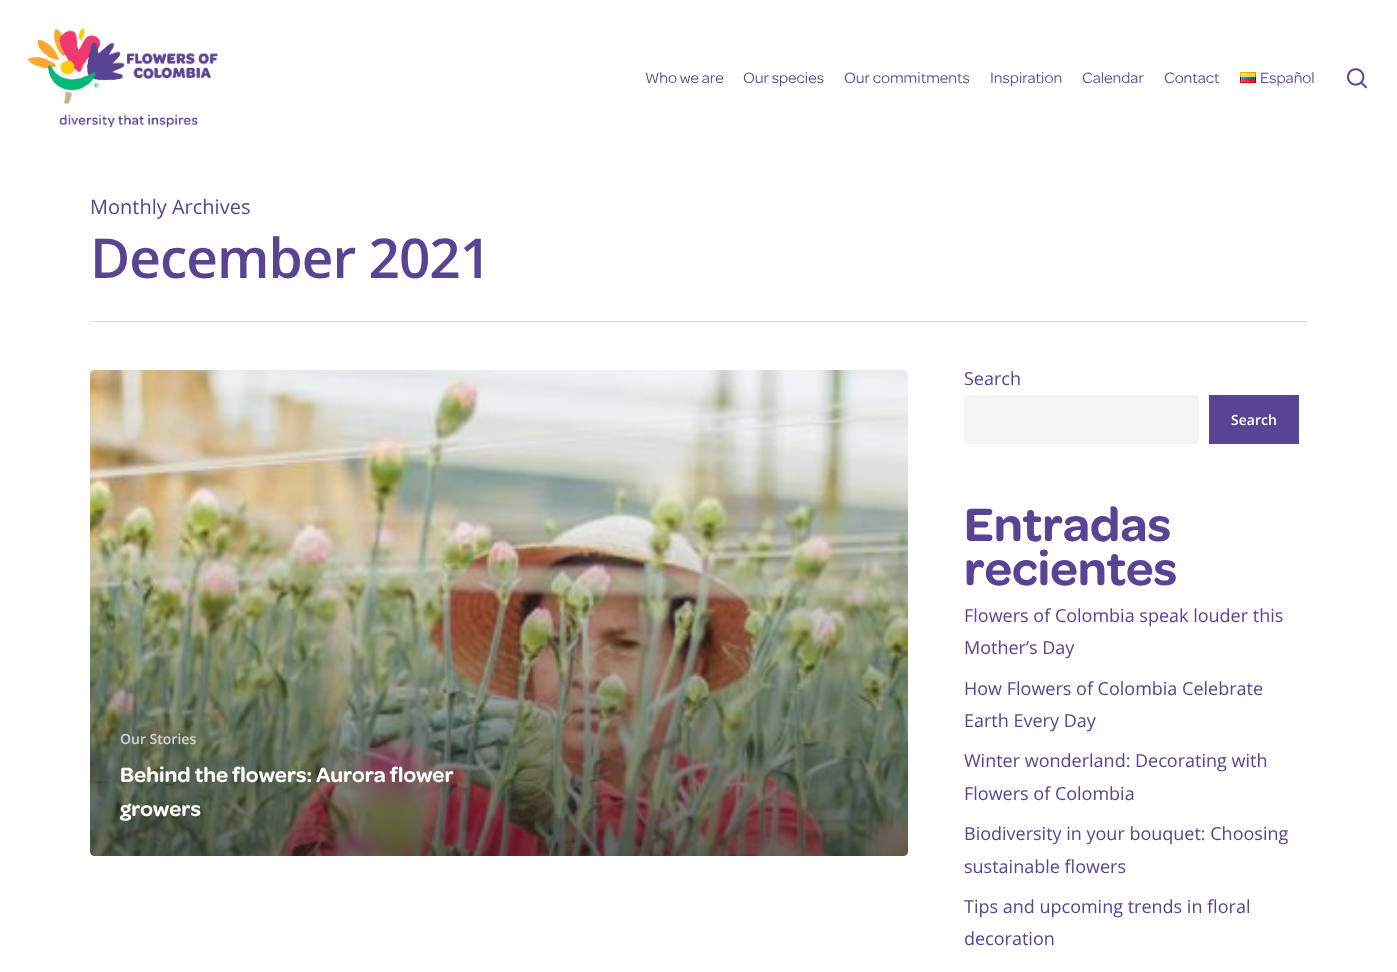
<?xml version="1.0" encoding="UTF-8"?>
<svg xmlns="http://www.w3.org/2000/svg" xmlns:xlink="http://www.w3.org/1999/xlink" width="1397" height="972">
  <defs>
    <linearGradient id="g1" gradientUnits="userSpaceOnUse" x1="501" y1="493" x2="501" y2="859"><stop offset="0" stop-color="#232323" stop-opacity="0" /><stop offset="1" stop-color="#232323" stop-opacity="0.65" /></linearGradient>
  </defs>
  <rect width="100%" height="100%" fill="#ffffff" />
  <image x="28" y="28" width="190" height="100" xlink:href="image1.png" />
  <image x="1240" y="72" width="16" height="11" xlink:href="image2.png" />
  <image x="1347" y="68" width="20" height="21" xlink:href="image3.png" />
  <rect x="90" y="321" width="1217" height="1" fill="#d9d9d9" />
  <image x="90" y="370" width="818" height="486" xlink:href="image4.png" />
  <path d="M 90 493 h 818 v 358 c 0 3 -2 5 -5 5 h -808 c -3 0 -5 -2 -5 -5 z" fill="url(#g1)" />
  <rect x="964" y="395" width="235" height="49" rx="4" fill="#f5f5f5" />
  <rect x="1209" y="395" width="90" height="49" fill="#594393" />
  <text x="645" y="83" style="font-family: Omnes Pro; font-size: 16px; fill: #594393">Who we are</text>
  <text x="743" y="83" style="font-family: Omnes Pro; font-size: 16px; fill: #594393">Our species</text>
  <text x="844" y="83" style="font-family: Omnes Pro; font-size: 16px; fill: #594393">Our commitments</text>
  <text x="990" y="83" style="font-family: Omnes Pro; font-size: 16px; fill: #594393">Inspiration</text>
  <text x="1082" y="83" style="font-family: Omnes Pro; font-size: 16px; fill: #594393">Calendar</text>
  <text x="1164" y="83" style="font-family: Omnes Pro; font-size: 16px; fill: #594393">Contact</text>
  <text x="1260" y="83" style="font-family: Omnes Pro; font-size: 16px; fill: #594393">Español</text>
  <text x="90" y="214" style="font-family: Open Sans; font-size: 20px; fill: #594393">Monthly Archives</text>
  <text x="90" y="278" style="font-family: Open Sans; font-size: 55px; font-weight: 600; letter-spacing: -1px; fill: #594393">December 2021</text>
  <text x="120" y="744" style="font-family: Open Sans; font-size: 14px; font-weight: 600; fill: #d2d5cf">Our Stories</text>
  <text x="120" y="782" style="font-family: Omnes Pro; font-size: 22px; font-weight: 600; fill: #ffffff">Behind the flowers: Aurora flower</text>
  <text x="120" y="816" style="font-family: Omnes Pro; font-size: 22px; font-weight: 600; fill: #ffffff">growers</text>
  <text x="964" y="385" style="font-family: Open Sans; font-size: 18px; fill: #594393">Search</text>
  <text x="1231" y="425" style="font-family: Open Sans; font-size: 14px; font-weight: 600; fill: #ffffff">Search</text>
  <text x="964" y="541" style="font-family: Omnes Pro; font-size: 50px; font-weight: 600; fill: #594393">Entradas</text>
  <text x="964" y="585" style="font-family: Omnes Pro; font-size: 50px; font-weight: 600; fill: #594393">recientes</text>
  <text x="964" y="622" style="font-family: Open Sans; font-size: 18px; fill: #594393">Flowers of Colombia speak louder this</text>
  <text x="964" y="654" style="font-family: Open Sans; font-size: 18px; fill: #594393">Mother’s Day</text>
  <text x="964" y="695" style="font-family: Open Sans; font-size: 18px; fill: #594393">How Flowers of Colombia Celebrate</text>
  <text x="964" y="727" style="font-family: Open Sans; font-size: 18px; fill: #594393">Earth Every Day</text>
  <text x="964" y="767" style="font-family: Open Sans; font-size: 18px; fill: #594393">Winter wonderland: Decorating with</text>
  <text x="964" y="800" style="font-family: Open Sans; font-size: 18px; fill: #594393">Flowers of Colombia</text>
  <text x="964" y="840" style="font-family: Open Sans; font-size: 18px; fill: #594393">Biodiversity in your bouquet: Choosing</text>
  <text x="964" y="873" style="font-family: Open Sans; font-size: 18px; fill: #594393">sustainable flowers</text>
  <text x="964" y="913" style="font-family: Open Sans; font-size: 18px; fill: #594393">Tips and upcoming trends in floral</text>
  <text x="964" y="945" style="font-family: Open Sans; font-size: 18px; fill: #594393">decoration</text>
</svg>
